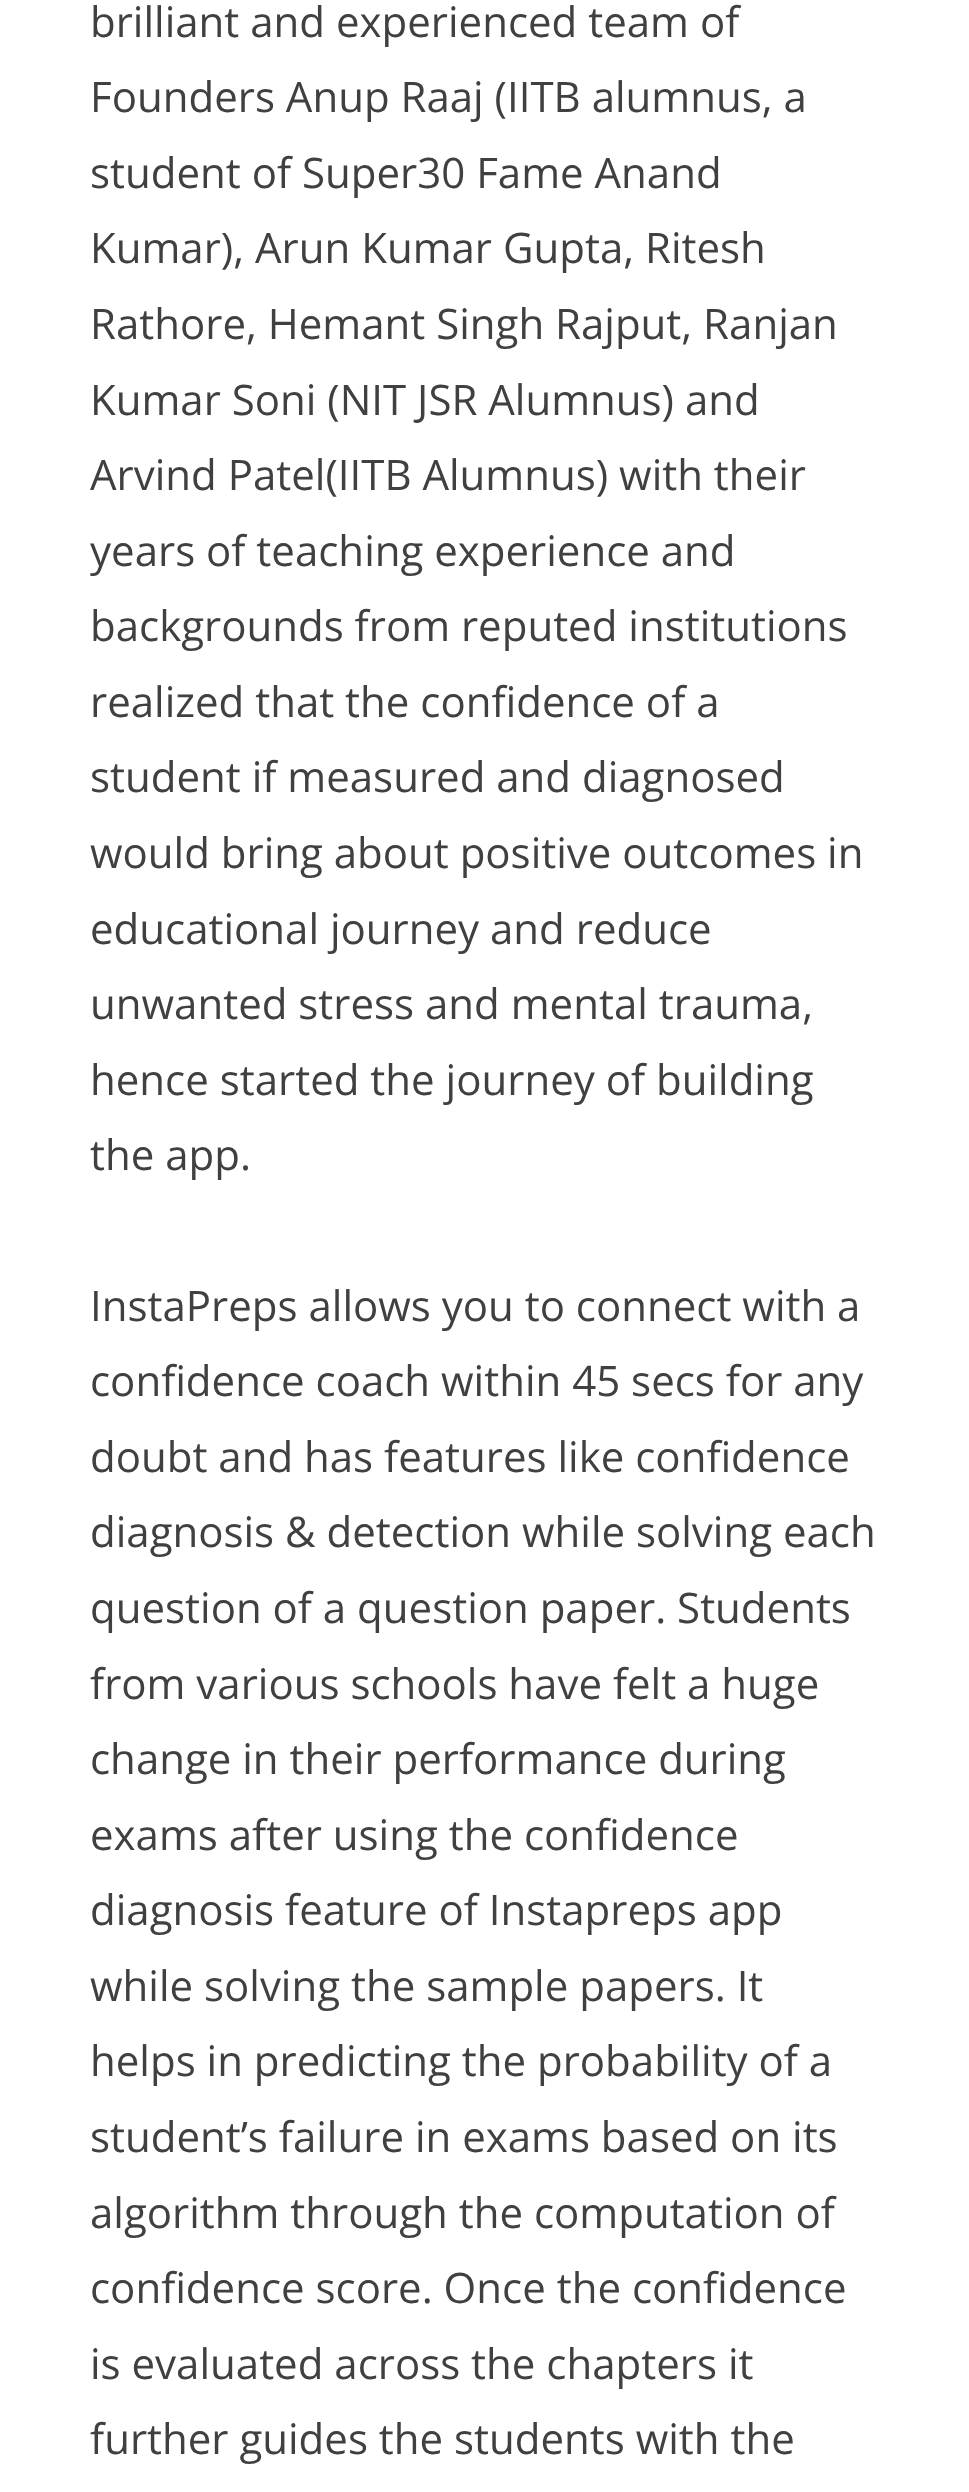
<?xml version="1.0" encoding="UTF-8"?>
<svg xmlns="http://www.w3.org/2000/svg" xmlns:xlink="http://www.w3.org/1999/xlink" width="969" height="2492">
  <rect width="100%" height="100%" fill="#ffffff" />
  <text x="90" y="37" style="font-family: Open Sans; font-size: 42px; fill: #404040">brilliant and experienced team of</text>
  <text x="90" y="112" style="font-family: Open Sans; font-size: 42px; fill: #404040">Founders Anup Raaj (IITB alumnus, a</text>
  <text x="90" y="188" style="font-family: Open Sans; font-size: 42px; fill: #404040">student of Super30 Fame Anand</text>
  <text x="90" y="263" style="font-family: Open Sans; font-size: 42px; fill: #404040">Kumar), Arun Kumar Gupta, Ritesh</text>
  <text x="90" y="339" style="font-family: Open Sans; font-size: 42px; fill: #404040">Rathore, Hemant Singh Rajput, Ranjan</text>
  <text x="90" y="415" style="font-family: Open Sans; font-size: 42px; fill: #404040">Kumar Soni (NIT JSR Alumnus) and</text>
  <text x="90" y="490" style="font-family: Open Sans; font-size: 42px; fill: #404040">Arvind Patel(IITB Alumnus) with their</text>
  <text x="90" y="566" style="font-family: Open Sans; font-size: 42px; fill: #404040">years of teaching experience and</text>
  <text x="90" y="641" style="font-family: Open Sans; font-size: 42px; fill: #404040">backgrounds from reputed institutions</text>
  <text x="90" y="717" style="font-family: Open Sans; font-size: 42px; fill: #404040">realized that the confidence of a</text>
  <text x="90" y="792" style="font-family: Open Sans; font-size: 42px; fill: #404040">student if measured and diagnosed</text>
  <text x="90" y="868" style="font-family: Open Sans; font-size: 42px; fill: #404040">would bring about positive outcomes in</text>
  <text x="90" y="944" style="font-family: Open Sans; font-size: 42px; fill: #404040">educational journey and reduce</text>
  <text x="90" y="1019" style="font-family: Open Sans; font-size: 42px; fill: #404040">unwanted stress and mental trauma,</text>
  <text x="90" y="1095" style="font-family: Open Sans; font-size: 42px; fill: #404040">hence started the journey of building</text>
  <text x="90" y="1170" style="font-family: Open Sans; font-size: 42px; fill: #404040">the app.</text>
  <text x="90" y="1321" style="font-family: Open Sans; font-size: 42px; fill: #404040">InstaPreps allows you to connect with a</text>
  <text x="90" y="1396" style="font-family: Open Sans; font-size: 42px; fill: #404040">confidence coach within 45 secs for any</text>
  <text x="90" y="1472" style="font-family: Open Sans; font-size: 42px; fill: #404040">doubt and has features like confidence</text>
  <text x="90" y="1547" style="font-family: Open Sans; font-size: 42px; fill: #404040">diagnosis &amp; detection while solving each</text>
  <text x="90" y="1623" style="font-family: Open Sans; font-size: 42px; fill: #404040">question of a question paper. Students</text>
  <text x="90" y="1699" style="font-family: Open Sans; font-size: 42px; fill: #404040">from various schools have felt a huge</text>
  <text x="90" y="1774" style="font-family: Open Sans; font-size: 42px; fill: #404040">change in their performance during</text>
  <text x="90" y="1850" style="font-family: Open Sans; font-size: 42px; fill: #404040">exams after using the confidence</text>
  <text x="90" y="1925" style="font-family: Open Sans; font-size: 42px; fill: #404040">diagnosis feature of Instapreps app</text>
  <text x="90" y="2001" style="font-family: Open Sans; font-size: 42px; fill: #404040">while solving the sample papers. It</text>
  <text x="90" y="2076" style="font-family: Open Sans; font-size: 42px; fill: #404040">helps in predicting the probability of a</text>
  <text x="90" y="2152" style="font-family: Open Sans; font-size: 42px; fill: #404040">student’s failure in exams based on its</text>
  <text x="90" y="2228" style="font-family: Open Sans; font-size: 42px; fill: #404040">algorithm through the computation of</text>
  <text x="90" y="2303" style="font-family: Open Sans; font-size: 42px; fill: #404040">confidence score. Once the confidence</text>
  <text x="90" y="2379" style="font-family: Open Sans; font-size: 42px; fill: #404040">is evaluated across the chapters it</text>
  <text x="90" y="2454" style="font-family: Open Sans; font-size: 42px; fill: #404040">further guides the students with the</text>
</svg>
